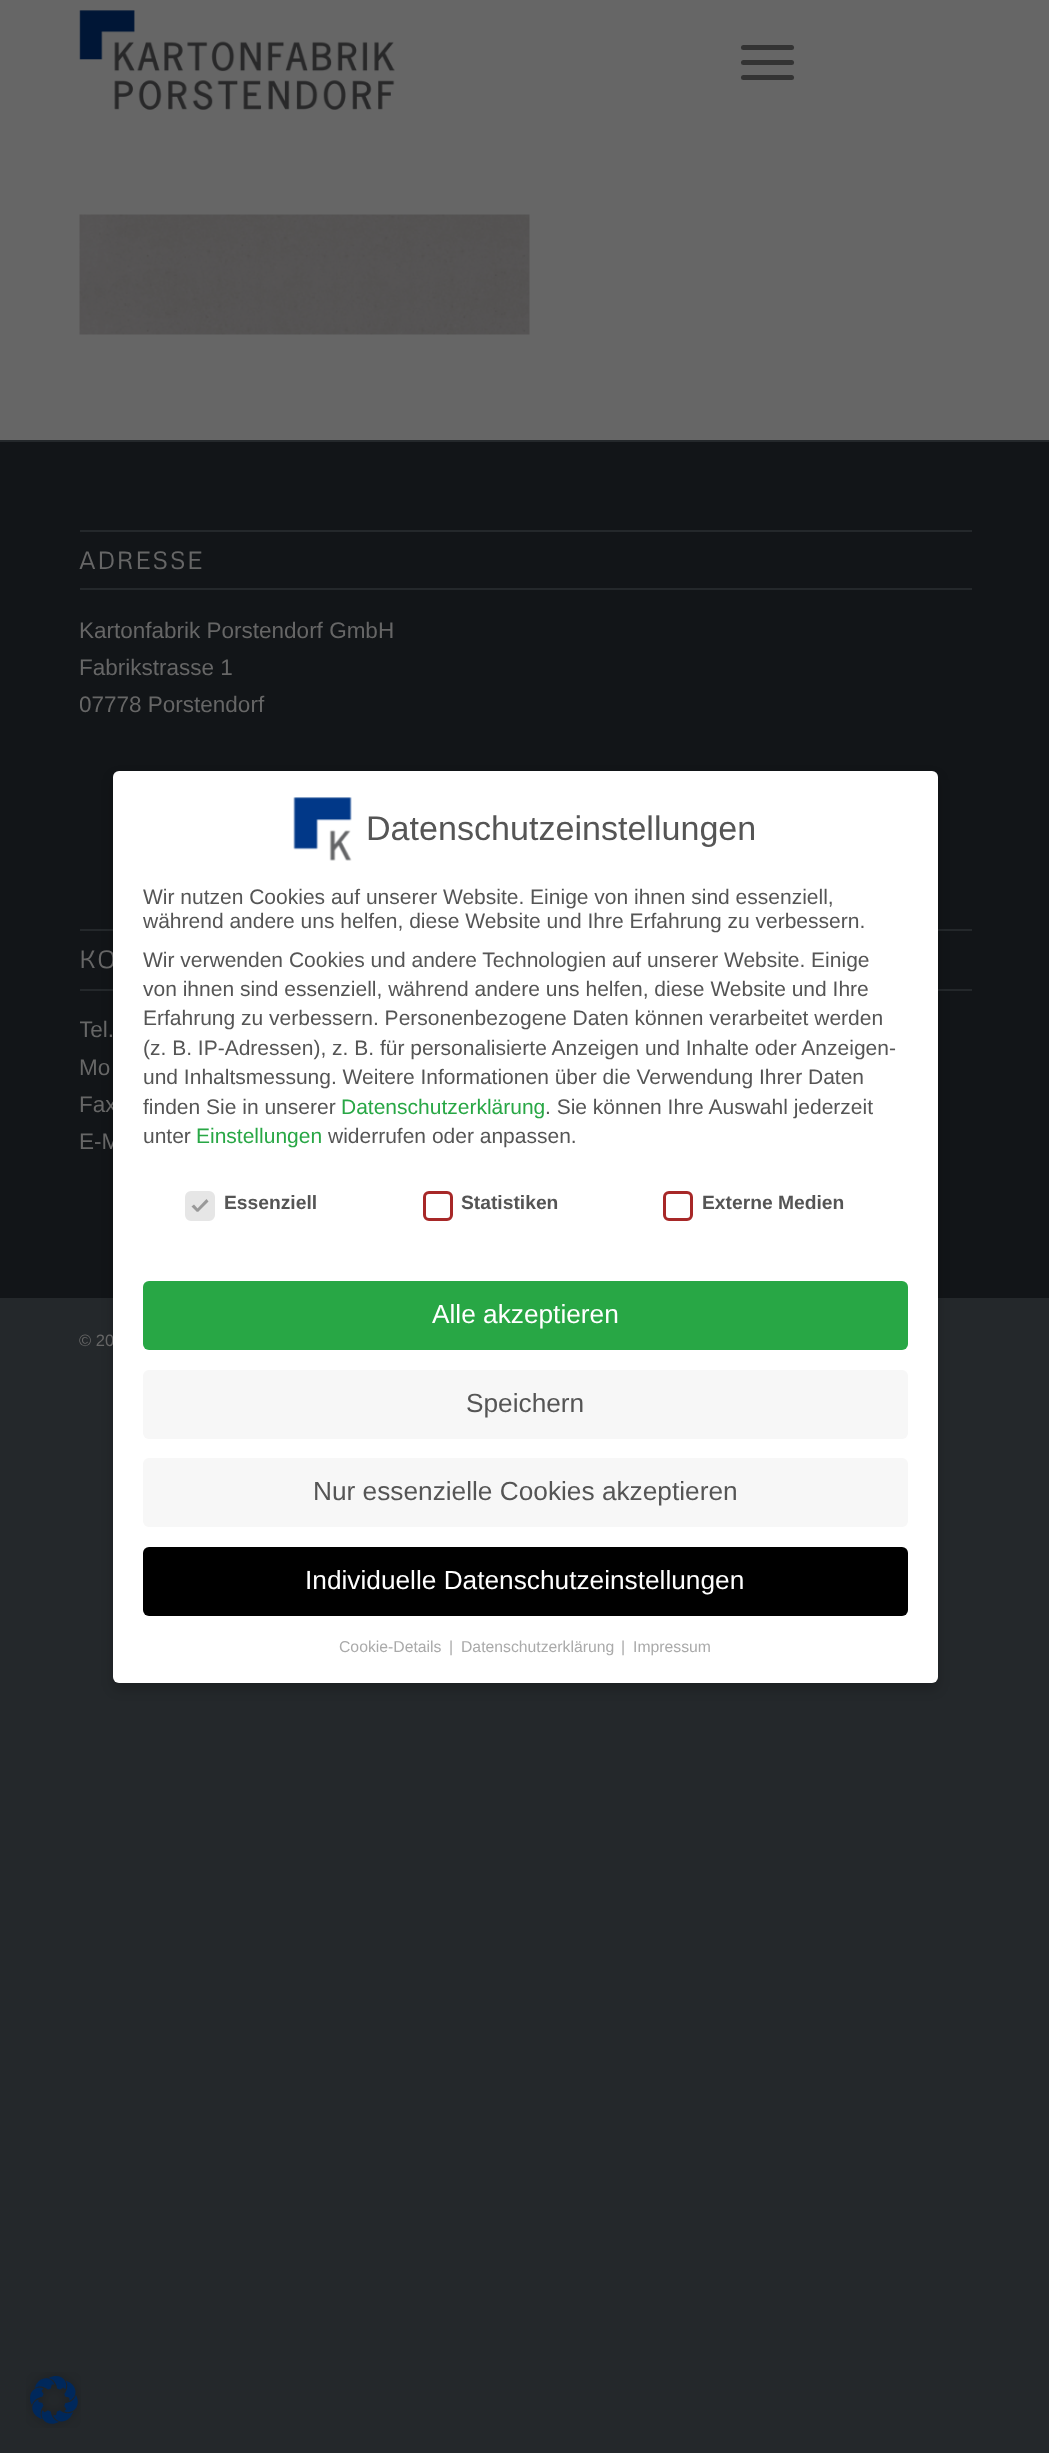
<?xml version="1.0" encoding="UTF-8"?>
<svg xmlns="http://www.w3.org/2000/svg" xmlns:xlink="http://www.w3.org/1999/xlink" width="1049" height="2453">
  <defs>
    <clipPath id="clip1"><rect x="80" y="509" width="892" height="234" /></clipPath>
    <clipPath id="clip2"><rect x="80" y="908" width="892" height="271" /></clipPath>
  </defs>
  <rect width="100%" height="100%" fill="#24282b" />
  <rect width="1049" height="440" fill="#666666" />
  <image x="79" y="10" width="316" height="100" xlink:href="image1.png" />
  <rect x="741" y="60" width="53" height="5" rx="2.5" fill="#333333" />
  <rect x="741" y="45" width="53" height="5" rx="2.5" fill="#333333" />
  <rect x="741" y="75" width="53" height="5" rx="2.5" fill="#333333" />
  <image x="79" y="214" width="451" height="121" xlink:href="image2.png" />
  <rect y="442" width="1049" height="856" fill="#121518" />
  <rect x="80" y="530" width="892" height="2" fill="#24282b" />
  <rect x="80" y="588" width="892" height="2" fill="#24282b" />
  <rect x="80" y="929" width="892" height="2" fill="#24282b" />
  <rect x="80" y="989" width="892" height="2" fill="#24282b" />
  <rect x="113" y="777" width="825" height="912" rx="6" fill="#000000" fill-opacity="0.2" filter="blur(6px)" />
  <image x="26" y="2372" width="55" height="56" xlink:href="image4.png" />
  <text x="79" y="569" style="font-family: Metrophobic; font-size: 24.75px; letter-spacing: 1.5px; fill: #666666">ADRESSE</text>
  <text x="79" y="638" style="font-family: Liberation Sans; font-size: 22.5px; fill: #666666">Kartonfabrik Porstendorf GmbH</text>
  <text x="79" y="675" style="font-family: Liberation Sans; font-size: 22.5px; fill: #666666">Fabrikstrasse 1</text>
  <g clip-path="url(#clip1)">
    <text x="79" y="712" style="font-family: Liberation Sans; font-size: 22.5px; fill: #666666">07778 Porstendorf</text>
  </g>
  <text x="79" y="968" style="font-family: Metrophobic; font-size: 24.75px; letter-spacing: 1.5px; fill: #666666">KO</text>
  <g clip-path="url(#clip2)">
    <text x="79" y="1037" style="font-family: Liberation Sans; font-size: 22.5px; fill: #666666">Tel.</text>
  </g>
  <text x="79" y="1075" style="font-family: Liberation Sans; font-size: 22.5px; fill: #666666">Mo</text>
  <text x="79" y="1112" style="font-family: Liberation Sans; font-size: 22.5px; fill: #666666">Fax</text>
  <text x="79" y="1149" style="font-family: Liberation Sans; font-size: 22.5px; fill: #666666">E-M</text>
  <text x="79" y="1346" style="font-family: Liberation Sans; font-size: 16.5px; fill: #666666">© 20</text>
  <rect x="113" y="771" width="825" height="912" rx="6" fill="#ffffff" />
  <image x="293" y="797" width="59" height="64" xlink:href="image3.png" />
  <text x="366" y="840" style="font-family: Liberation Sans; font-size: 34.1px; fill: #555555">Datenschutzeinstellungen</text>
  <text x="143" y="904" style="font-family: Liberation Sans; font-size: 21px; fill: #555555">Wir nutzen Cookies auf unserer Website. Einige von ihnen sind essenziell,</text>
  <text x="143" y="928" style="font-family: Liberation Sans; font-size: 21px; fill: #555555">während andere uns helfen, diese Website und Ihre Erfahrung zu verbessern.</text>
  <text x="143" y="967" style="font-family: Liberation Sans; font-size: 21px; fill: #555555">Wir verwenden Cookies und andere Technologien auf unserer Website. Einige</text>
  <text x="143" y="996" style="font-family: Liberation Sans; font-size: 21px; fill: #555555">von ihnen sind essenziell, während andere uns helfen, diese Website und Ihre</text>
  <text x="143" y="1025" style="font-family: Liberation Sans; font-size: 21px; fill: #555555">Erfahrung zu verbessern. Personenbezogene Daten können verarbeitet werden</text>
  <text x="143" y="1055" style="font-family: Liberation Sans; font-size: 21px; fill: #555555">(z. B. IP-Adressen), z. B. für personalisierte Anzeigen und Inhalte oder Anzeigen-</text>
  <text x="143" y="1084" style="font-family: Liberation Sans; font-size: 21px; fill: #555555">und Inhaltsmessung. Weitere Informationen über die Verwendung Ihrer Daten</text>
  <text x="143" y="1114" style="font-family: Liberation Sans; font-size: 21px; fill: #555555">finden Sie in unserer</text>
  <text x="341" y="1114" style="font-family: Liberation Sans; font-size: 21px; fill: #28a745">Datenschutzerklärung</text>
  <text x="545" y="1114" style="font-family: Liberation Sans; font-size: 21px; fill: #555555">. Sie können Ihre Auswahl jederzeit</text>
  <text x="143" y="1143" style="font-family: Liberation Sans; font-size: 21px; fill: #555555">unter</text>
  <text x="196" y="1143" style="font-family: Liberation Sans; font-size: 21px; fill: #28a745">Einstellungen</text>
  <text x="328" y="1143" style="font-family: Liberation Sans; font-size: 21px; fill: #555555">widerrufen oder anpassen.</text>
  <rect x="186.5" y="1192.5" width="27" height="27" rx="4.5" fill="#e6e6e6" stroke="#e6e6e6" stroke-width="3" />
  <path d="M 206.5 1199 l 2 2.5 l -10.5 10.5 l -2 -2 z" fill="#999999" />
  <path d="M 194 1204.5 l 5 5.5 l -2 2 l -5.5 -5.5 z" fill="#999999" />
  <text x="224" y="1209" style="font-family: Liberation Sans; font-size: 19.25px; font-weight: bold; fill: #555555">Essenziell</text>
  <rect x="424.5" y="1192.5" width="27" height="27" rx="4.5" fill="none" stroke="#a72828" stroke-width="3" />
  <text x="461" y="1209" style="font-family: Liberation Sans; font-size: 19.25px; font-weight: bold; fill: #555555">Statistiken</text>
  <rect x="664.5" y="1192.5" width="27" height="27" rx="4.5" fill="none" stroke="#a72828" stroke-width="3" />
  <text x="702" y="1209" style="font-family: Liberation Sans; font-size: 19.25px; font-weight: bold; fill: #555555">Externe Medien</text>
  <rect x="143" y="1281" width="765" height="69" rx="6" fill="#28a745" />
  <text x="432" y="1323" style="font-family: Liberation Sans; font-size: 26.25px; fill: #ffffff">Alle akzeptieren</text>
  <rect x="143" y="1370" width="765" height="69" rx="6" fill="#f7f7f7" />
  <text x="466" y="1412" style="font-family: Liberation Sans; font-size: 26.25px; fill: #555555">Speichern</text>
  <rect x="143" y="1458" width="765" height="69" rx="6" fill="#f7f7f7" />
  <text x="313" y="1500" style="font-family: Liberation Sans; font-size: 26.25px; fill: #555555">Nur essenzielle Cookies akzeptieren</text>
  <rect x="143" y="1547" width="765" height="69" rx="6" fill="#000000" />
  <text x="305" y="1589" style="font-family: Liberation Sans; font-size: 26.25px; fill: #ffffff">Individuelle Datenschutzeinstellungen</text>
  <text x="339" y="1652" style="font-family: Liberation Sans; font-size: 15.75px; fill: #aaaaaa">Cookie-Details</text>
  <text x="449" y="1652" style="font-family: Liberation Sans; font-size: 15.75px; fill: #aaaaaa">|</text>
  <text x="461" y="1652" style="font-family: Liberation Sans; font-size: 15.75px; fill: #aaaaaa">Datenschutzerklärung</text>
  <text x="621" y="1652" style="font-family: Liberation Sans; font-size: 15.75px; fill: #aaaaaa">|</text>
  <text x="633" y="1652" style="font-family: Liberation Sans; font-size: 15.75px; fill: #aaaaaa">Impressum</text>
</svg>
